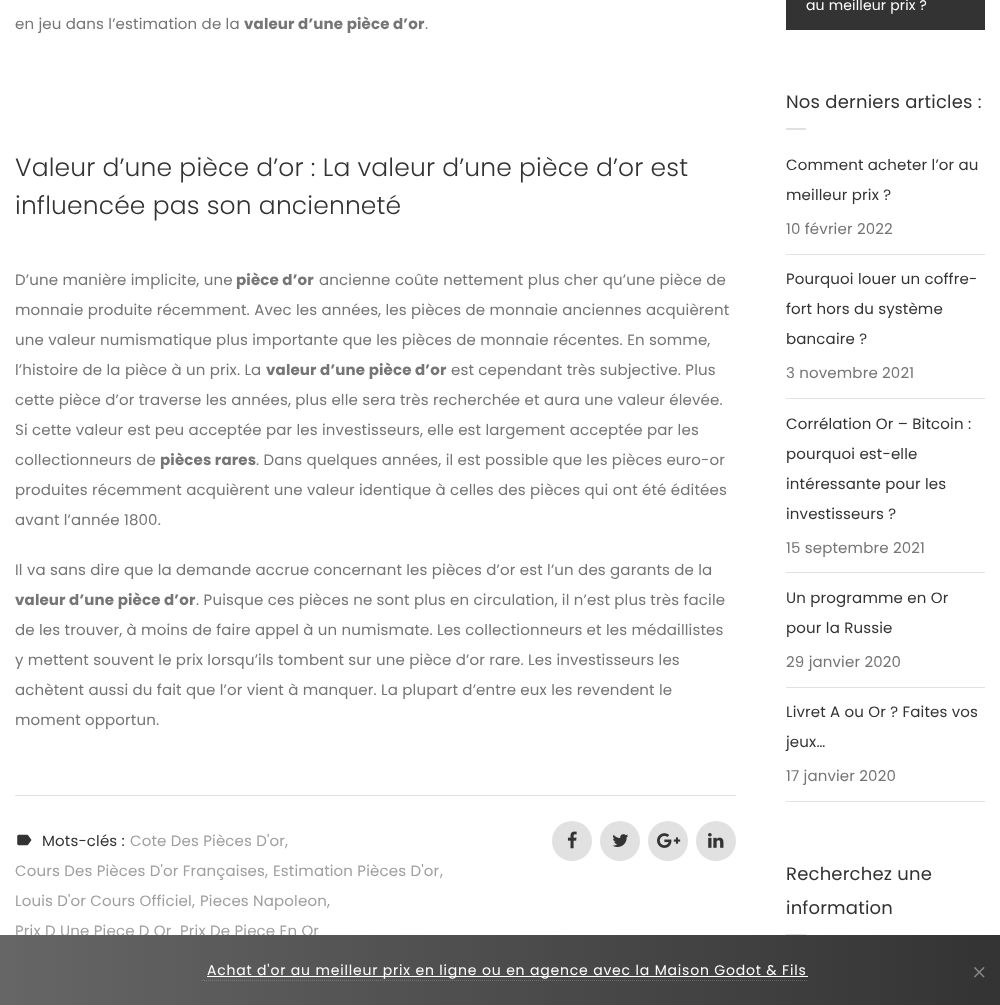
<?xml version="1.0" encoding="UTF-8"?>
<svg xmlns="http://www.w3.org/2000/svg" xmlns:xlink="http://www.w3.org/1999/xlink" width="1000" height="1005">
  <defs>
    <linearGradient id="g1" gradientUnits="userSpaceOnUse" x1="0" y1="970" x2="1000" y2="970"><stop offset="0" stop-color="#666666" /><stop offset="1" stop-color="#333333" /></linearGradient>
  </defs>
  <rect width="100%" height="100%" fill="#ffffff" />
  <rect x="15" y="795" width="721" height="1" fill="#e1e1e1" />
  <image x="17" y="834" width="15" height="12" xlink:href="image1.png" />
  <circle cx="572" cy="841" r="20" fill="#e1e1e1" />
  <image x="567" y="831" width="10" height="18" xlink:href="image2.png" />
  <circle cx="620" cy="841" r="20" fill="#e1e1e1" />
  <image x="612" y="834" width="17" height="13" xlink:href="image3.png" />
  <circle cx="668" cy="841" r="20" fill="#e1e1e1" />
  <image x="657" y="833" width="24" height="15" xlink:href="image4.png" />
  <circle cx="716" cy="841" r="20" fill="#e1e1e1" />
  <image x="708" y="833" width="16" height="15" xlink:href="image5.png" />
  <rect x="786" width="199" height="30" fill="#333333" />
  <rect x="786" y="128" width="20" height="2" fill="#e1e1e1" />
  <rect x="786" y="254" width="199" height="1" fill="#e1e1e1" />
  <rect x="786" y="398" width="199" height="1" fill="#e1e1e1" />
  <rect x="786" y="572" width="199" height="1" fill="#e1e1e1" />
  <rect x="786" y="687" width="199" height="1" fill="#e1e1e1" />
  <rect x="786" y="801" width="199" height="1" fill="#e1e1e1" />
  <rect x="786" y="934" width="20" height="1" fill="#e1e1e1" />
  <text x="15" y="29" word-spacing="0.1" style="font-family: Poppins; font-size: 15px; letter-spacing: 0.15px; fill: #757575">en jeu dans l’estimation de la</text>
  <text x="244" y="29" word-spacing="0.1" style="font-family: Poppins; font-size: 15px; font-weight: bold; letter-spacing: 0.15px; fill: #757575">valeur d’une pièce d’or</text>
  <text x="425" y="29" style="font-family: Poppins; font-size: 15px; letter-spacing: 0.15px; fill: #757575">.</text>
  <text x="15" y="176" word-spacing="0.1" style="font-family: Poppins; font-size: 25px; font-weight: 300; letter-spacing: 0.15px; fill: #333333">Valeur d’une pièce d’or : La valeur d’une pièce d’or est</text>
  <text x="15" y="214" word-spacing="0.1" style="font-family: Poppins; font-size: 25px; font-weight: 300; letter-spacing: 0.15px; fill: #333333">influencée pas son ancienneté</text>
  <text x="15" y="285" word-spacing="0.1" style="font-family: Poppins; font-size: 15px; letter-spacing: 0.15px; fill: #757575">D’une manière implicite, une</text>
  <text x="236" y="285" word-spacing="0.1" style="font-family: Poppins; font-size: 15px; font-weight: bold; letter-spacing: 0.15px; fill: #757575">pièce d’or</text>
  <text x="319" y="285" word-spacing="0.25" style="font-family: Poppins; font-size: 15px; letter-spacing: 0.15px; fill: #757575">ancienne coûte nettement plus cher qu’une pièce de</text>
  <text x="15" y="315" word-spacing="0.1" style="font-family: Poppins; font-size: 15px; letter-spacing: 0.15px; fill: #757575">monnaie produite récemment. Avec les années, les pièces de monnaie anciennes acquièrent</text>
  <text x="15" y="345" word-spacing="0.1" style="font-family: Poppins; font-size: 15px; letter-spacing: 0.15px; fill: #757575">une valeur numismatique plus importante que les pièces de monnaie récentes. En somme,</text>
  <text x="15" y="375" word-spacing="0.1" style="font-family: Poppins; font-size: 15px; letter-spacing: 0.15px; fill: #757575">l’histoire de la pièce à un prix. La</text>
  <text x="266" y="375" word-spacing="0.1" style="font-family: Poppins; font-size: 15px; font-weight: bold; letter-spacing: 0.15px; fill: #757575">valeur d’une pièce d’or</text>
  <text x="451" y="375" word-spacing="0.1" style="font-family: Poppins; font-size: 15px; letter-spacing: 0.15px; fill: #757575">est cependant très subjective. Plus</text>
  <text x="15" y="405" word-spacing="0.1" style="font-family: Poppins; font-size: 15px; letter-spacing: 0.15px; fill: #757575">cette pièce d’or traverse les années, plus elle sera très recherchée et aura une valeur élevée.</text>
  <text x="15" y="435" word-spacing="0.1" style="font-family: Poppins; font-size: 15px; letter-spacing: 0.15px; fill: #757575">Si cette valeur est peu acceptée par les investisseurs, elle est largement acceptée par les</text>
  <text x="15" y="465" word-spacing="0.1" style="font-family: Poppins; font-size: 15px; letter-spacing: 0.15px; fill: #757575">collectionneurs de</text>
  <text x="160" y="465" word-spacing="0.1" style="font-family: Poppins; font-size: 15px; font-weight: bold; letter-spacing: 0.15px; fill: #757575">pièces rares</text>
  <text x="256" y="465" word-spacing="0.1" style="font-family: Poppins; font-size: 15px; letter-spacing: 0.15px; fill: #757575">. Dans quelques années, il est possible que les pièces euro-or</text>
  <text x="15" y="495" word-spacing="0.1" style="font-family: Poppins; font-size: 15px; letter-spacing: 0.15px; fill: #757575">produites récemment acquièrent une valeur identique à celles des pièces qui ont été éditées</text>
  <text x="15" y="525" word-spacing="0.1" style="font-family: Poppins; font-size: 15px; letter-spacing: 0.15px; fill: #757575">avant l’année 1800.</text>
  <text x="15" y="575" word-spacing="0.1" style="font-family: Poppins; font-size: 15px; letter-spacing: 0.15px; fill: #757575">Il va sans dire que la demande accrue concernant les pièces d’or est l’un des garants de la</text>
  <text x="15" y="605" word-spacing="0.1" style="font-family: Poppins; font-size: 15px; font-weight: bold; letter-spacing: 0.15px; fill: #757575">valeur d’une pièce d’or</text>
  <text x="196" y="605" word-spacing="0.1" style="font-family: Poppins; font-size: 15px; letter-spacing: 0.15px; fill: #757575">. Puisque ces pièces ne sont plus en circulation, il n’est plus très facile</text>
  <text x="15" y="635" word-spacing="0.1" style="font-family: Poppins; font-size: 15px; letter-spacing: 0.15px; fill: #757575">de les trouver, à moins de faire appel à un numismate. Les collectionneurs et les médaillistes</text>
  <text x="15" y="665" word-spacing="0.1" style="font-family: Poppins; font-size: 15px; letter-spacing: 0.15px; fill: #757575">y mettent souvent le prix lorsqu’ils tombent sur une pièce d’or rare. Les investisseurs les</text>
  <text x="15" y="695" word-spacing="0.1" style="font-family: Poppins; font-size: 15px; letter-spacing: 0.15px; fill: #757575">achètent aussi du fait que l’or vient à manquer. La plupart d’entre eux les revendent le</text>
  <text x="15" y="725" word-spacing="0.1" style="font-family: Poppins; font-size: 15px; letter-spacing: 0.15px; fill: #757575">moment opportun.</text>
  <text x="42" y="846" word-spacing="0.1" style="font-family: Poppins; font-size: 15px; letter-spacing: 0.15px; fill: #333333">Mots-clés :</text>
  <text x="130" y="846" word-spacing="0.1" style="font-family: Poppins; font-size: 15px; letter-spacing: 0.15px; fill: #9f9f9f">Cote Des Pièces D'or</text>
  <text x="285" y="846" style="font-family: Poppins; font-size: 15px; letter-spacing: 0.15px; fill: #9f9f9f">,</text>
  <text x="15" y="876" word-spacing="0.1" style="font-family: Poppins; font-size: 15px; letter-spacing: 0.15px; fill: #9f9f9f">Cours Des Pièces D'or Françaises</text>
  <text x="265" y="876" style="font-family: Poppins; font-size: 15px; letter-spacing: 0.15px; fill: #9f9f9f">,</text>
  <text x="273" y="876" word-spacing="0.1" style="font-family: Poppins; font-size: 15px; letter-spacing: 0.15px; fill: #9f9f9f">Estimation Pièces D'or</text>
  <text x="440" y="876" style="font-family: Poppins; font-size: 15px; letter-spacing: 0.15px; fill: #9f9f9f">,</text>
  <text x="15" y="906" word-spacing="0.1" style="font-family: Poppins; font-size: 15px; letter-spacing: 0.15px; fill: #9f9f9f">Louis D'or Cours Officiel</text>
  <text x="192" y="906" style="font-family: Poppins; font-size: 15px; letter-spacing: 0.15px; fill: #9f9f9f">,</text>
  <text x="200" y="906" word-spacing="0.1" style="font-family: Poppins; font-size: 15px; letter-spacing: 0.15px; fill: #9f9f9f">Pieces Napoleon</text>
  <text x="327" y="906" style="font-family: Poppins; font-size: 15px; letter-spacing: 0.15px; fill: #9f9f9f">,</text>
  <text x="15" y="936" word-spacing="0.1" style="font-family: Poppins; font-size: 15px; letter-spacing: 0.15px; fill: #9f9f9f">Prix D Une Piece D Or</text>
  <text x="180" y="936" word-spacing="0.1" style="font-family: Poppins; font-size: 15px; letter-spacing: 0.15px; fill: #9f9f9f">Prix De Piece En Or</text>
  <text x="806" y="10" word-spacing="0.1" style="font-family: Poppins; font-size: 14px; letter-spacing: 0.15px; fill: #ffffff">au meilleur prix ?</text>
  <text x="786" y="108" word-spacing="0.1" style="font-family: Poppins; font-size: 18px; letter-spacing: 0.2px; fill: #333333">Nos derniers articles :</text>
  <text x="786" y="170" word-spacing="0.1" style="font-family: Poppins; font-size: 15px; letter-spacing: 0.15px; fill: #333333">Comment acheter l’or au</text>
  <text x="786" y="200" word-spacing="0.1" style="font-family: Poppins; font-size: 15px; letter-spacing: 0.15px; fill: #333333">meilleur prix ?</text>
  <text x="786" y="234" word-spacing="0.1" style="font-family: Poppins; font-size: 15px; letter-spacing: 0.15px; fill: #757575">10 février 2022</text>
  <text x="786" y="284" word-spacing="0.1" style="font-family: Poppins; font-size: 15px; letter-spacing: 0.15px; fill: #333333">Pourquoi louer un coffre-</text>
  <text x="786" y="314" word-spacing="0.1" style="font-family: Poppins; font-size: 15px; letter-spacing: 0.15px; fill: #333333">fort hors du système</text>
  <text x="786" y="344" word-spacing="0.1" style="font-family: Poppins; font-size: 15px; letter-spacing: 0.15px; fill: #333333">bancaire ?</text>
  <text x="786" y="378" word-spacing="0.1" style="font-family: Poppins; font-size: 15px; letter-spacing: 0.15px; fill: #757575">3 novembre 2021</text>
  <text x="786" y="429" word-spacing="0.1" style="font-family: Poppins; font-size: 15px; letter-spacing: 0.15px; fill: #333333">Corrélation Or – Bitcoin :</text>
  <text x="786" y="459" word-spacing="0.1" style="font-family: Poppins; font-size: 15px; letter-spacing: 0.15px; fill: #333333">pourquoi est-elle</text>
  <text x="786" y="489" word-spacing="0.1" style="font-family: Poppins; font-size: 15px; letter-spacing: 0.15px; fill: #333333">intéressante pour les</text>
  <text x="786" y="519" word-spacing="0.1" style="font-family: Poppins; font-size: 15px; letter-spacing: 0.15px; fill: #333333">investisseurs ?</text>
  <text x="786" y="553" word-spacing="0.1" style="font-family: Poppins; font-size: 15px; letter-spacing: 0.15px; fill: #757575">15 septembre 2021</text>
  <text x="786" y="603" word-spacing="0.1" style="font-family: Poppins; font-size: 15px; letter-spacing: 0.15px; fill: #333333">Un programme en Or</text>
  <text x="786" y="633" word-spacing="0.1" style="font-family: Poppins; font-size: 15px; letter-spacing: 0.15px; fill: #333333">pour la Russie</text>
  <text x="786" y="667" word-spacing="0.1" style="font-family: Poppins; font-size: 15px; letter-spacing: 0.15px; fill: #757575">29 janvier 2020</text>
  <text x="786" y="717" word-spacing="0.1" style="font-family: Poppins; font-size: 15px; letter-spacing: 0.15px; fill: #333333">Livret A ou Or ? Faites vos</text>
  <text x="786" y="747" style="font-family: Poppins; font-size: 15px; letter-spacing: 0.15px; fill: #333333">jeux…</text>
  <text x="786" y="781" word-spacing="0.1" style="font-family: Poppins; font-size: 15px; letter-spacing: 0.15px; fill: #757575">17 janvier 2020</text>
  <text x="786" y="880" word-spacing="0.1" style="font-family: Poppins; font-size: 18px; letter-spacing: 0.2px; fill: #333333">Recherchez une</text>
  <text x="786" y="914" style="font-family: Poppins; font-size: 18px; letter-spacing: 0.2px; fill: #333333">information</text>
  <rect y="935" width="1000" height="70" fill="url(#g1)" />
  <path d="M 202 980.5 h 606" fill="none" stroke="#ffffff" stroke-opacity="0.2" stroke-dasharray="1 1" />
  <rect x="207" y="976" width="601" height="1" fill="#ffffff" />
  <text x="207" y="975" word-spacing="0.1" style="font-family: Poppins; font-size: 14px; letter-spacing: 0.8px; fill: #ffffff">Achat d'or au meilleur prix en ligne ou en agence avec la Maison Godot &amp; Fils</text>
  <image x="974" y="967" width="11" height="11" xlink:href="image6.png" />
</svg>
